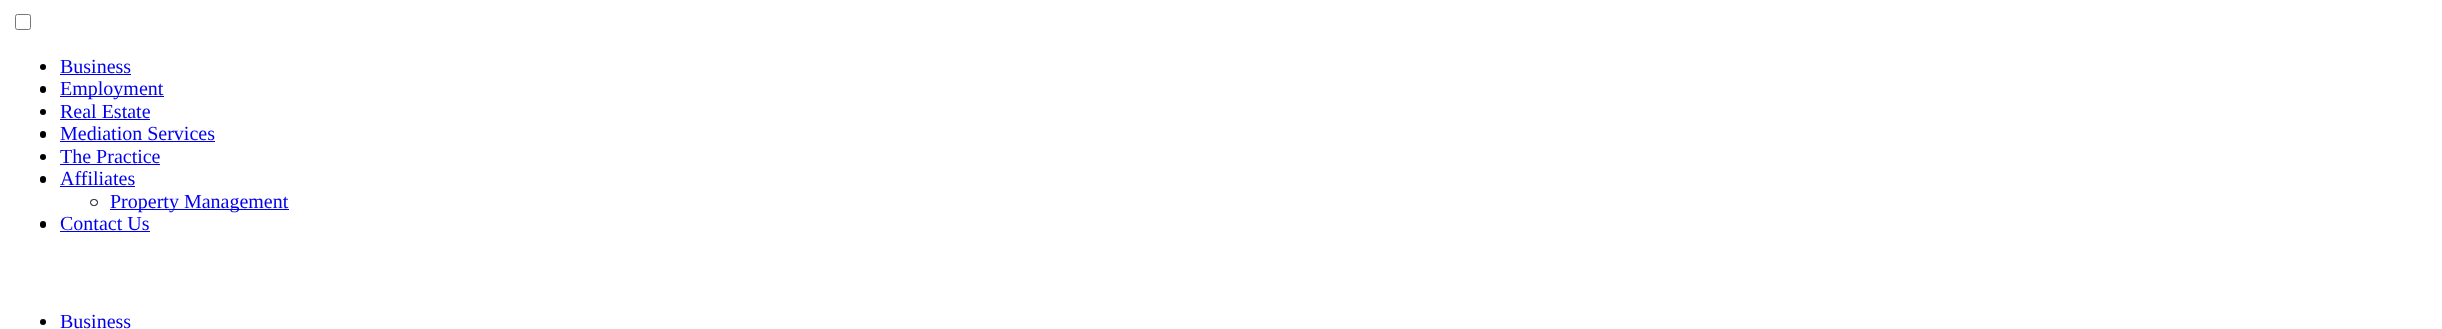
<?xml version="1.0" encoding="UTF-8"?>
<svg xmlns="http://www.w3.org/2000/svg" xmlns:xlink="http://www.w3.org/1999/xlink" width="2442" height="329">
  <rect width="100%" height="100%" fill="#ffffff" />
  <rect x="15.5" y="14.5" width="15" height="15" rx="2" fill="none" stroke="#767676" />
  <circle cx="43" cy="67" r="3" fill="#000000" />
  <rect x="60" y="74" width="71" height="1" fill="#0000ee" />
  <rect x="40" y="86" width="6" height="7" rx="3" fill="#000000" />
  <rect x="60" y="96" width="104" height="1" fill="#0000ee" />
  <circle cx="43" cy="112" r="3" fill="#000000" />
  <rect x="60" y="119" width="90" height="1" fill="#0000ee" />
  <rect x="40" y="131" width="6" height="7" rx="3" fill="#000000" />
  <rect x="60" y="141" width="155" height="1" fill="#0000ee" />
  <circle cx="43" cy="157" r="3" fill="#000000" />
  <rect x="60" y="164" width="100" height="1" fill="#0000ee" />
  <rect x="40" y="176" width="6" height="7" rx="3" fill="#000000" />
  <rect x="60" y="186" width="75" height="1" fill="#0000ee" />
  <rect x="90.5" y="199.5" width="7" height="6" rx="3" fill="none" stroke="#000000" />
  <rect x="110" y="209" width="179" height="1" fill="#0000ee" />
  <rect x="40" y="221" width="6" height="7" rx="3" fill="#000000" />
  <rect x="60" y="231" width="90" height="1" fill="#0000ee" />
  <circle cx="43" cy="322" r="3" fill="#000000" />
  <text x="60" y="73" style="font-family: Liberation Serif; font-size: 20px; fill: #0000ee">Business</text>
  <text x="60" y="95" style="font-family: Liberation Serif; font-size: 20px; fill: #0000ee">Employment</text>
  <text x="60" y="118" style="font-family: Liberation Serif; font-size: 20px; fill: #0000ee">Real Estate</text>
  <text x="60" y="140" style="font-family: Liberation Serif; font-size: 20px; fill: #0000ee">Mediation Services</text>
  <text x="60" y="163" style="font-family: Liberation Serif; font-size: 20px; fill: #0000ee">The Practice</text>
  <text x="60" y="185" style="font-family: Liberation Serif; font-size: 20px; fill: #0000ee">Affiliates</text>
  <text x="110" y="208" style="font-family: Liberation Serif; font-size: 20px; fill: #0000ee">Property Management</text>
  <text x="60" y="230" style="font-family: Liberation Serif; font-size: 20px; fill: #0000ee">Contact Us</text>
  <text x="60" y="328" style="font-family: Liberation Serif; font-size: 20px; fill: #0000ee">Business</text>
</svg>
